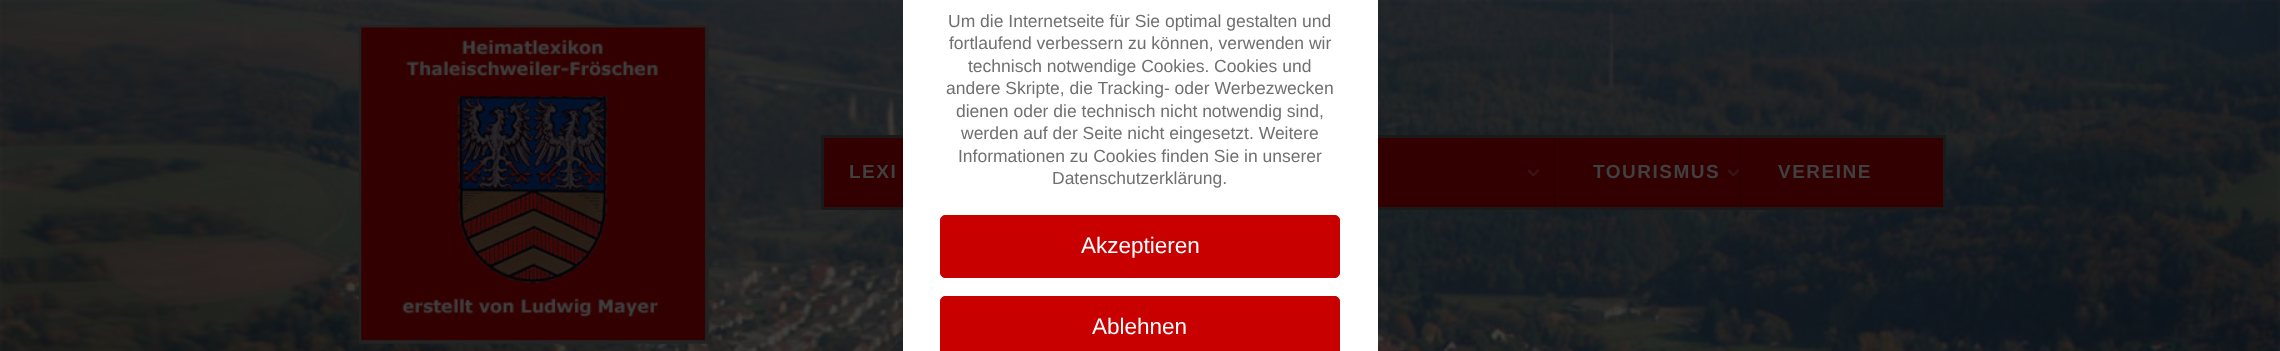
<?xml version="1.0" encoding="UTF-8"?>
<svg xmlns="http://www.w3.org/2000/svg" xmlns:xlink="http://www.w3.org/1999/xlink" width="2280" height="351">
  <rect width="100%" height="100%" fill="#ffffff" />
  <image x="0" y="0" width="2280" height="351" xlink:href="image1.png" />
  <rect x="822.5" y="136.5" width="1122" height="72" fill="#320000" stroke="#1a1a1a" stroke-width="3" />
  <rect x="903" width="475" height="351" fill="#ffffff" />
  <rect x="940.5" y="215.5" width="399" height="62" rx="4.5" fill="#c90000" stroke="#c90000" />
  <rect x="940.5" y="296.5" width="399" height="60" rx="4.5" fill="#c90000" stroke="#c90000" />
  <image x="358" y="25" width="351" height="319" xlink:href="image2.png" />
  <rect x="1554" y="138" width="1" height="70" fill="#000000" fill-opacity="0.2" />
  <image x="1527" y="169" width="12" height="8" xlink:href="image3.png" />
  <rect x="1740" y="138" width="1" height="70" fill="#000000" fill-opacity="0.2" />
  <image x="1727" y="169" width="12" height="8" xlink:href="image3.png" />
  <text x="948" y="27" style="font-family: Liberation Sans; font-size: 17.5px; fill: #707070">Um die Internetseite für Sie optimal gestalten und</text>
  <text x="949" y="49" style="font-family: Liberation Sans; font-size: 17.5px; fill: #707070">fortlaufend verbessern zu können, verwenden wir</text>
  <text x="968" y="72" style="font-family: Liberation Sans; font-size: 17.5px; fill: #707070">technisch notwendige Cookies. Cookies und</text>
  <text x="946" y="94" style="font-family: Liberation Sans; font-size: 17.5px; fill: #707070">andere Skripte, die Tracking- oder Werbezwecken</text>
  <text x="956" y="117" style="font-family: Liberation Sans; font-size: 17.5px; fill: #707070">dienen oder die technisch nicht notwendig sind,</text>
  <text x="961" y="139" style="font-family: Liberation Sans; font-size: 17.5px; fill: #707070">werden auf der Seite nicht eingesetzt. Weitere</text>
  <text x="958" y="162" style="font-family: Liberation Sans; font-size: 17.5px; fill: #707070">Informationen zu Cookies finden Sie in unserer</text>
  <text x="1052" y="184" style="font-family: Liberation Sans; font-size: 17.5px; fill: #707070">Datenschutzerklärung.</text>
  <text x="1081" y="253" style="font-family: Liberation Sans; font-size: 22.5px; fill: #ffffff">Akzeptieren</text>
  <text x="1092" y="334" style="font-family: Liberation Sans; font-size: 22.5px; fill: #ffffff">Ablehnen</text>
  <text x="849" y="178" style="font-family: Liberation Sans; font-size: 19px; font-weight: bold; letter-spacing: 1.5px; fill: #404040">LEXI</text>
  <text x="1593" y="178" style="font-family: Liberation Sans; font-size: 19px; font-weight: bold; letter-spacing: 1.5px; fill: #404040">TOURISMUS</text>
  <text x="1778" y="178" style="font-family: Liberation Sans; font-size: 19px; font-weight: bold; letter-spacing: 1.5px; fill: #404040">VEREINE</text>
</svg>
